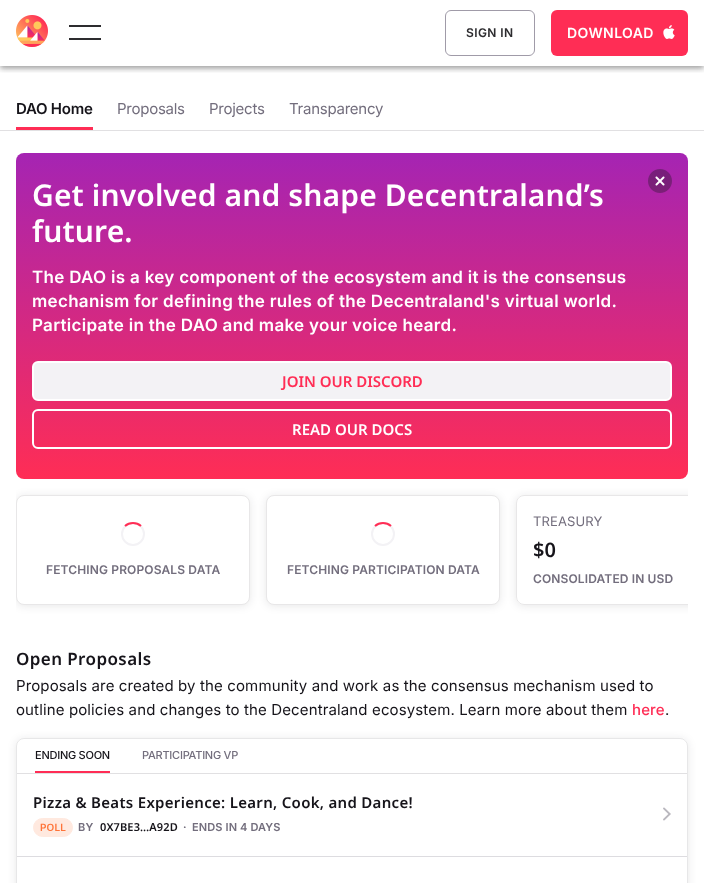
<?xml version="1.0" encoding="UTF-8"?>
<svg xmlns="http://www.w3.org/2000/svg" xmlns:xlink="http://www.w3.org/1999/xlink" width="704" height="883">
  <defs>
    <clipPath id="clip1"><rect x="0" y="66" width="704" height="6" /></clipPath>
    <clipPath id="clip2"><rect x="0" y="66" width="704" height="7" /></clipPath>
    <clipPath id="clip3"><rect x="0" y="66" width="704" height="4" /></clipPath>
    <linearGradient id="g1" gradientUnits="userSpaceOnUse" x1="352" y1="153" x2="352" y2="479"><stop offset="0" stop-color="#a524b3" /><stop offset="1" stop-color="#ff2d55" /></linearGradient>
    <clipPath id="clip4"><rect x="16" y="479" width="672" height="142" /></clipPath>
    <clipPath id="clip5"><rect x="16" y="479" width="672" height="142" /></clipPath>
    <clipPath id="clip6"><path d="M 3 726 h 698 v 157 h -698 z m 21 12 h 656 c 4.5 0 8 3.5 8 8 v 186 c 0 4.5 -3.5 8 -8 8 h -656 c -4.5 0 -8 -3.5 -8 -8 v -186 c 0 -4.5 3.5 -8 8 -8 z" clip-rule="evenodd" /></clipPath>
  </defs>
  <rect width="100%" height="100%" fill="#ffffff" />
  <g clip-path="url(#clip1)">
    <rect y="1" width="704" height="66" fill="#000000" fill-opacity="0.12" filter="blur(5px)" />
  </g>
  <g clip-path="url(#clip2)">
    <rect y="4" width="704" height="66" fill="#000000" fill-opacity="0.14" filter="blur(2.5px)" />
  </g>
  <g clip-path="url(#clip3)">
    <rect x="1" y="3" width="702" height="64" fill="#000000" fill-opacity="0.2" filter="blur(2px)" />
  </g>
  <image x="16" y="15" width="32" height="32" xlink:href="image1.png" />
  <rect x="69" y="25" width="32" height="2" fill="#2d2c2f" />
  <rect x="69" y="38" width="32" height="2" fill="#2d2c2f" />
  <rect x="445.5" y="10.5" width="89" height="45" rx="5.5" fill="none" stroke="#a09ba8" />
  <rect x="551" y="10" width="137" height="46" rx="6" fill="#ff2d55" />
  <image x="663" y="25" width="12" height="14" xlink:href="image2.png" />
  <rect y="130" width="704" height="1" fill="#e1e0e2" />
  <rect x="16" y="127" width="77" height="3" fill="#ff2d55" />
  <rect x="16" y="153" width="672" height="326" rx="8" fill="url(#g1)" />
  <image x="648" y="169" width="24" height="24" xlink:href="image3.png" />
  <rect x="33" y="362" width="638" height="38" rx="5" fill="#f3f2f5" stroke="#ffffff" stroke-width="2" />
  <rect x="33" y="410" width="638" height="38" rx="5" fill="none" stroke="#ffffff" stroke-width="2" />
  <g clip-path="url(#clip4)">
    <rect x="16" y="496" width="234" height="110" rx="8" fill="#16141a" fill-opacity="0.1" filter="blur(4px)" />
  </g>
  <rect x="16.5" y="495.5" width="233" height="109" rx="7.5" fill="#ffffff" stroke="#e8e7e8" />
  <circle cx="133" cy="534" r="11" fill="none" stroke="#f3f2f5" stroke-width="2" />
  <path d="M 125 526 c 4.5 -4 11.5 -4 16 0" fill="none" stroke="#ff2d55" stroke-width="2" />
  <rect x="266" y="496" width="234" height="110" rx="8" fill="#16141a" fill-opacity="0.1" filter="blur(4px)" />
  <rect x="266.5" y="495.5" width="233" height="109" rx="7.5" fill="#ffffff" stroke="#e8e7e8" />
  <circle cx="383" cy="534" r="11" fill="none" stroke="#f3f2f5" stroke-width="2" />
  <path d="M 375 526 c 4.5 -4 11.5 -4 16 0" fill="none" stroke="#ff2d55" stroke-width="2" />
  <g clip-path="url(#clip4)">
    <rect x="516" y="496" width="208" height="110" rx="8" fill="#16141a" fill-opacity="0.1" filter="blur(4px)" />
  </g>
  <path d="M 524 495 h 164 v 110 h -164 c -4.5 0 -8 -3.5 -8 -8 v -94 c 0 -4.5 3.5 -8 8 -8 z" fill="#ffffff" />
  <g clip-path="url(#clip5)">
    <rect x="516.5" y="495.5" width="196" height="109" rx="7.5" fill="none" stroke="#e8e7e8" />
  </g>
  <g clip-path="url(#clip6)">
    <rect x="16" y="739" width="672" height="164" rx="8" fill="#16141a" fill-opacity="0.1" filter="blur(4px)" />
  </g>
  <rect x="16.5" y="738.5" width="671" height="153" rx="7.5" fill="none" stroke="#16141a" stroke-opacity="0.1" />
  <rect x="17" y="773" width="670" height="1" fill="#e1e0e2" />
  <rect x="35" y="771" width="75" height="2" fill="#ff2d55" />
  <rect x="17" y="856" width="670" height="1" fill="#dddce0" />
  <rect x="33.5" y="818.5" width="39" height="18" rx="9" fill="#ffe9df" stroke="#ffe9df" />
  <image x="663" y="807" width="8" height="14" xlink:href="image4.png" />
  <text x="466" y="37" style="font-family: Inter; font-size: 12px; font-weight: 600; letter-spacing: 0.4px; fill: #2d2c2f">SIGN IN</text>
  <text x="567" y="38" style="font-family: Inter; font-size: 14px; font-weight: 600; letter-spacing: 0.4px; fill: #ffffff">DOWNLOAD</text>
  <text x="16" y="114" style="font-family: Inter; font-size: 15px; font-weight: 600; letter-spacing: -0.25px; fill: #16141a">DAO Home</text>
  <text x="117" y="114" style="font-family: Inter; font-size: 15px; letter-spacing: -0.25px; fill: #736e7d">Proposals</text>
  <text x="209" y="114" style="font-family: Inter; font-size: 15px; letter-spacing: -0.25px; fill: #736e7d">Projects</text>
  <text x="289" y="114" style="font-family: Inter; font-size: 15px; letter-spacing: -0.25px; fill: #736e7d">Transparency</text>
  <text x="32" y="206" style="font-family: Noto Sans; font-size: 30px; font-weight: 600; letter-spacing: 0.13px; fill: #ffffff">Get involved and shape Decentraland’s</text>
  <text x="32" y="242" style="font-family: Noto Sans; font-size: 30px; font-weight: 600; letter-spacing: 0.13px; fill: #ffffff">future.</text>
  <text x="32" y="283" style="font-family: Inter; font-size: 17px; font-weight: 600; letter-spacing: 0.3px; fill: #ffffff">The DAO is a key component of the ecosystem and it is the consensus</text>
  <text x="32" y="307" style="font-family: Inter; font-size: 17px; font-weight: 600; letter-spacing: 0.3px; fill: #ffffff">mechanism for defining the rules of the Decentraland's virtual world.</text>
  <text x="32" y="331" style="font-family: Inter; font-size: 17px; font-weight: 600; letter-spacing: 0.3px; fill: #ffffff">Participate in the DAO and make your voice heard.</text>
  <text x="282" y="387" style="font-family: Noto Sans; font-size: 15px; font-weight: 600; fill: #ff2d55">JOIN OUR DISCORD</text>
  <text x="292" y="435" style="font-family: Noto Sans; font-size: 15px; font-weight: 600; fill: #ffffff">READ OUR DOCS</text>
  <text x="46" y="574" style="font-family: Inter; font-size: 12px; font-weight: 600; letter-spacing: 0.13px; fill: #736e7d">FETCHING PROPOSALS DATA</text>
  <text x="287" y="574" style="font-family: Inter; font-size: 12px; font-weight: 600; letter-spacing: 0.13px; fill: #736e7d">FETCHING PARTICIPATION DATA</text>
  <text x="533" y="526" style="font-family: Inter; font-size: 13px; letter-spacing: 0.13px; fill: #736e7d">TREASURY</text>
  <text x="533" y="557" style="font-family: Noto Sans; font-size: 20px; font-weight: 600; letter-spacing: 0.13px; fill: #16141a">$0</text>
  <text x="533" y="583" style="font-family: Inter; font-size: 12px; font-weight: 600; letter-spacing: 0.13px; fill: #736e7d">CONSOLIDATED IN USD</text>
  <text x="16" y="665" style="font-family: Noto Sans; font-size: 17px; font-weight: 600; letter-spacing: 0.4px; fill: #16141a">Open Proposals</text>
  <text x="16" y="691" style="font-family: Inter; font-size: 15px; letter-spacing: 0.13px; fill: #16141a">Proposals are created by the community and work as the consensus mechanism used to</text>
  <text x="16" y="715" style="font-family: Inter; font-size: 15px; letter-spacing: 0.13px; fill: #16141a">outline policies and changes to the Decentraland ecosystem. Learn more about them</text>
  <text x="632" y="715" style="font-family: Inter; font-size: 15px; font-weight: 500; letter-spacing: 0.13px; fill: #ff2d55">here</text>
  <text x="665" y="715" style="font-family: Inter; font-size: 15px; letter-spacing: 0.13px; fill: #16141a">.</text>
  <text x="35" y="759" style="font-family: Inter; font-size: 11px; font-weight: 500; letter-spacing: -0.25px; fill: #16141a">ENDING SOON</text>
  <text x="142" y="759" style="font-family: Inter; font-size: 11px; font-weight: 500; letter-spacing: -0.25px; fill: #736e7d">PARTICIPATING VP</text>
  <text x="33" y="808" style="font-family: Noto Sans; font-size: 15px; font-weight: 600; letter-spacing: 0.3px; fill: #16141a">Pizza &amp; Beats Experience: Learn, Cook, and Dance!</text>
  <text x="40" y="831" style="font-family: Inter; font-size: 10px; font-weight: 600; letter-spacing: 0.13px; fill: #ff7439">POLL</text>
  <text x="78" y="831" style="font-family: Inter; font-size: 11px; font-weight: 600; letter-spacing: 0.13px; fill: #736e7d">BY</text>
  <text x="100" y="831" style="font-family: Noto Sans; font-size: 11px; font-weight: 600; letter-spacing: 0.13px; fill: #16141a">0X7BE3…A92D</text>
  <text x="183" y="831" style="font-family: Inter; font-size: 11px; font-weight: 600; letter-spacing: 0.13px; fill: #736e7d">·</text>
  <text x="192" y="831" style="font-family: Inter; font-size: 11px; font-weight: 600; letter-spacing: 0.13px; fill: #736e7d">ENDS IN 4 DAYS</text>
</svg>
